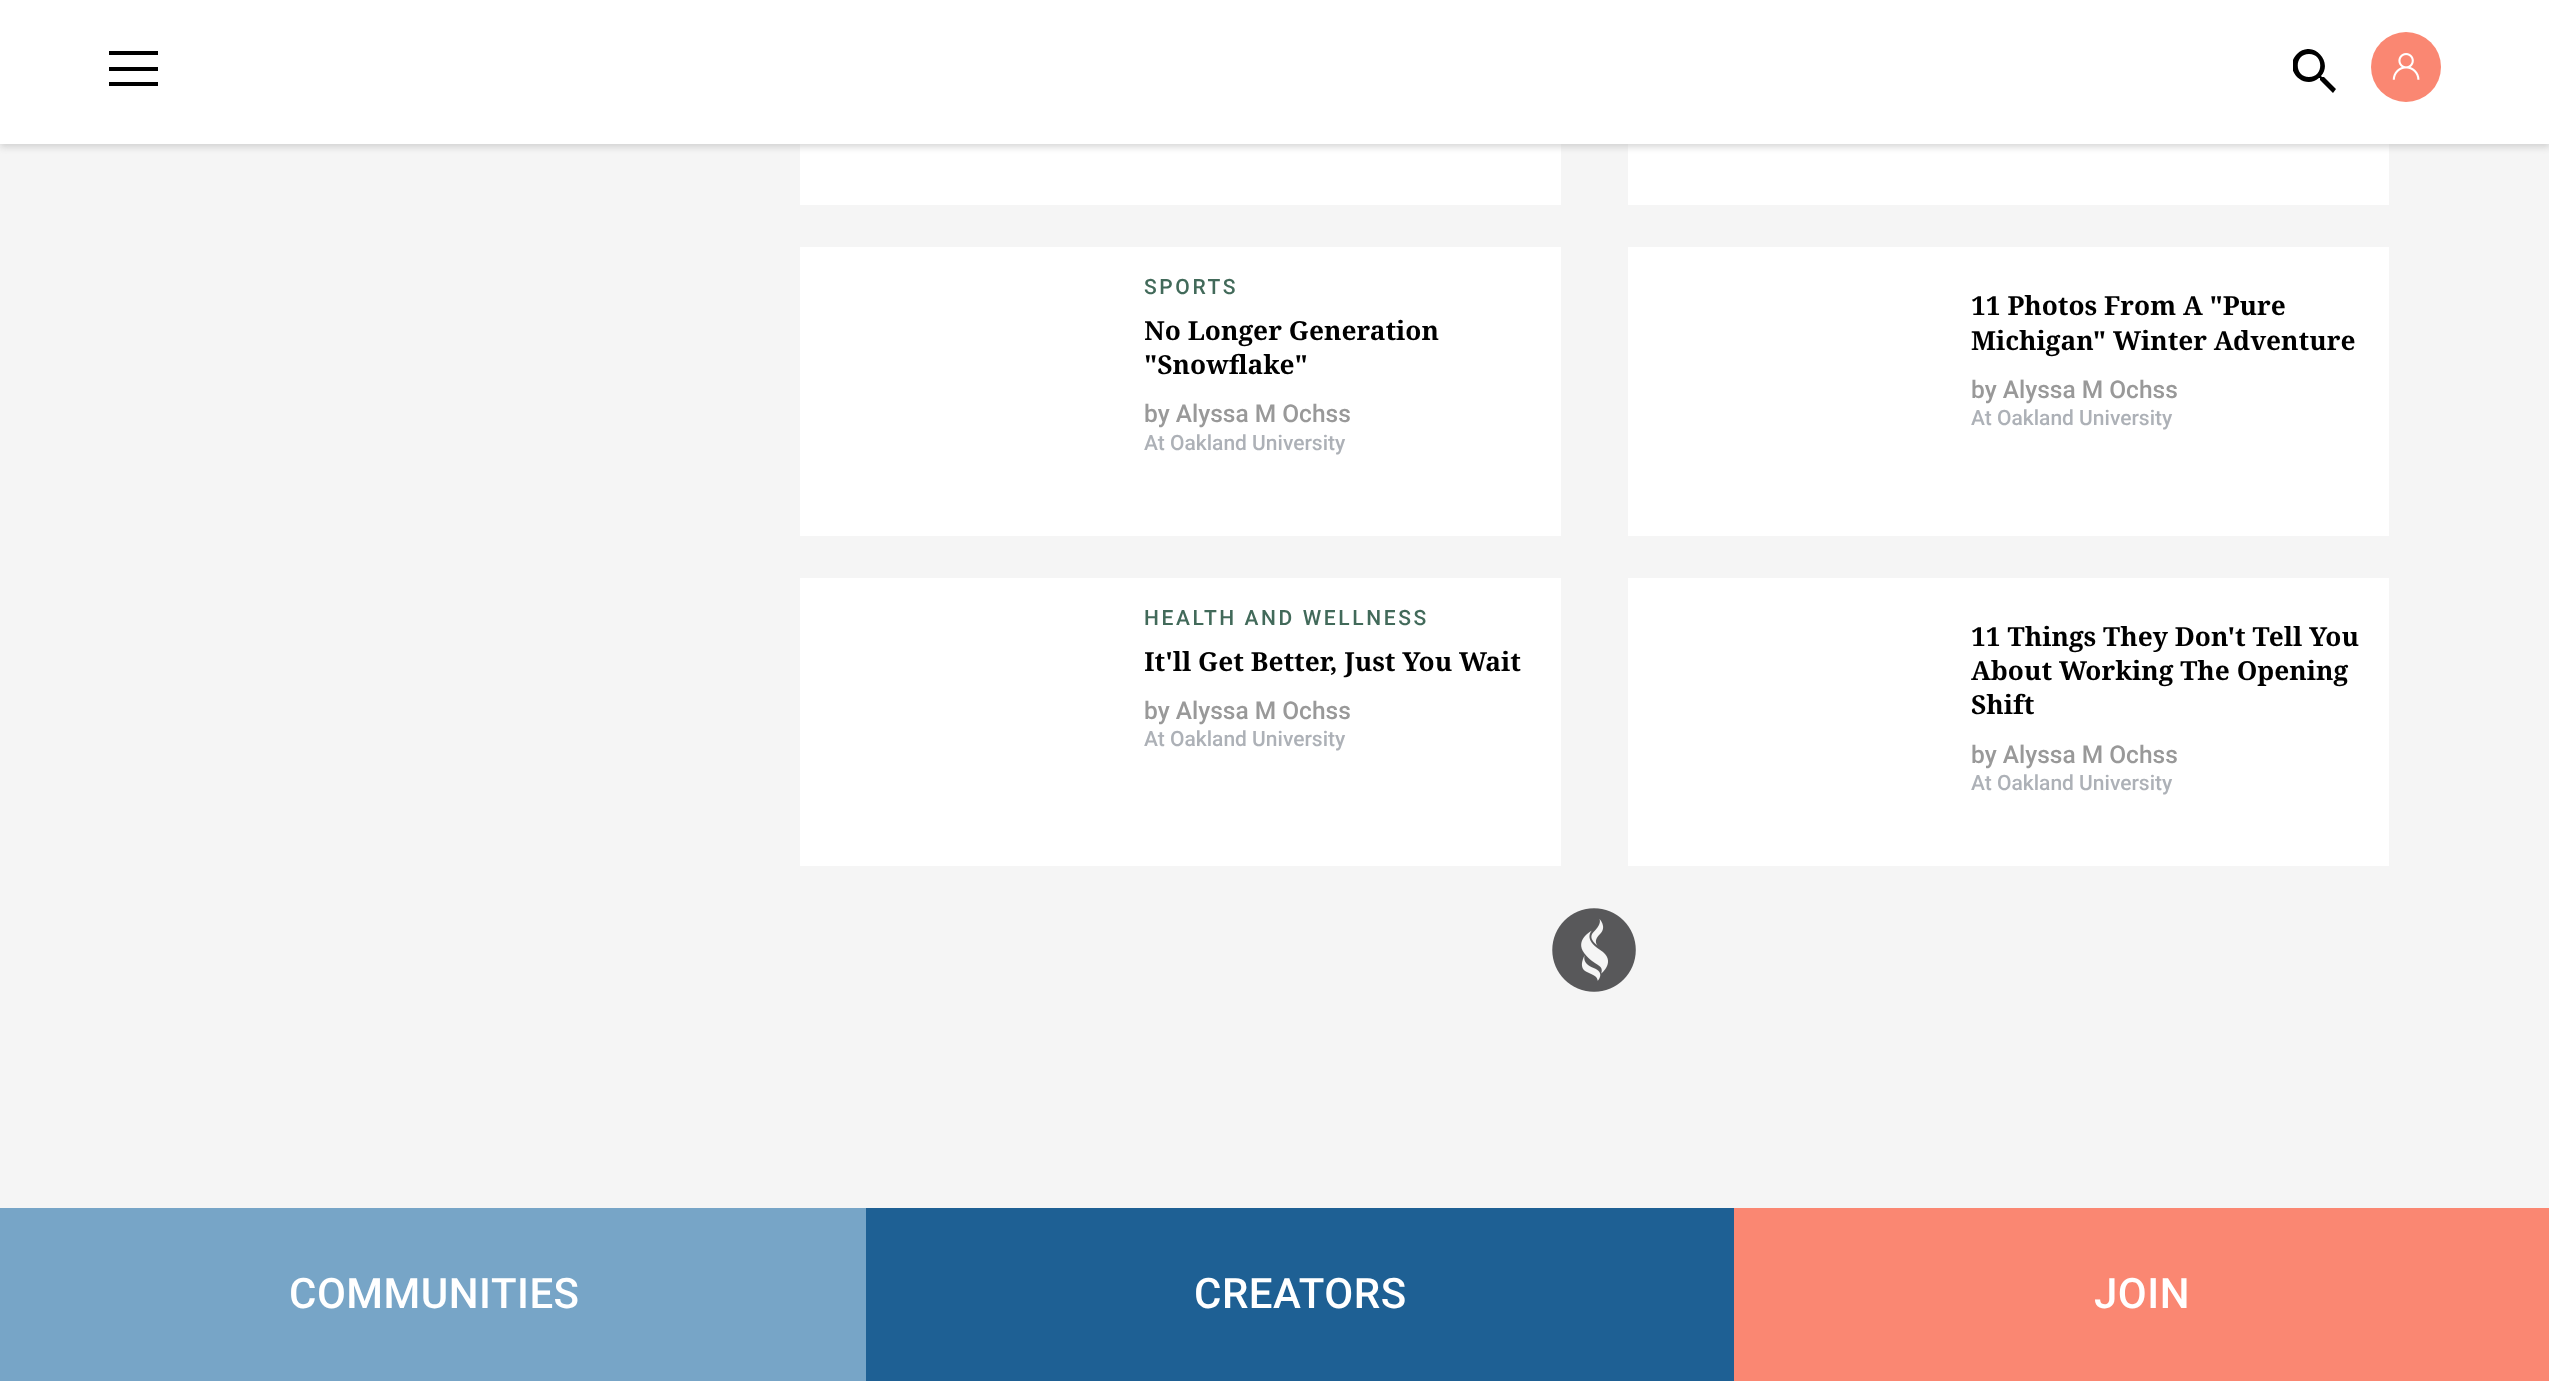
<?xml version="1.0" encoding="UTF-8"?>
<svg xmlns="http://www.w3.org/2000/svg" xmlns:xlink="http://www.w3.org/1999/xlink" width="2549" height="1381">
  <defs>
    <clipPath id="clip1"><rect x="2293" y="49" width="43" height="44" /></clipPath>
    <clipPath id="clip2"><rect x="1145" y="313" width="388" height="69" /></clipPath>
    <clipPath id="clip3"><rect x="1145" y="644" width="388" height="35" /></clipPath>
  </defs>
  <rect width="100%" height="100%" fill="#f5f5f5" />
  <rect x="800" y="144" width="761" height="61" fill="#ffffff" />
  <rect x="1628" y="144" width="761" height="61" fill="#ffffff" />
  <rect y="4" width="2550" height="143" fill="#adadad" fill-opacity="0.5" filter="blur(3.5px)" />
  <rect width="2549" height="144" fill="#ffffff" />
  <rect x="109" y="51" width="49" height="4" fill="#000000" />
  <rect x="109" y="67" width="49" height="4" fill="#000000" />
  <rect x="109" y="82" width="49" height="4" fill="#000000" />
  <g clip-path="url(#clip1)">
    <path d="M 2324 77 h -2 l -1 -1 c 13 -15 -9 -37 -24 -22 c -15 15 7 37 22 24 h 1 v 2 l 13 13 l 3 -4 z m -15 0 c -15 0 -15 -23 0 -23 c 15 0 15 23 0 23 z" fill="#000000" fill-rule="evenodd" />
  </g>
  <circle cx="2406" cy="67" r="35" fill="#fa8772" />
  <image x="2392" y="53" width="28" height="27" xlink:href="image1.png" />
  <rect x="800" y="247" width="761" height="289" fill="#ffffff" />
  <rect x="1628" y="247" width="761" height="289" fill="#ffffff" />
  <rect x="800" y="578" width="761" height="288" fill="#ffffff" />
  <rect x="1628" y="578" width="761" height="288" fill="#ffffff" />
  <image x="1552" y="908" width="84" height="84" xlink:href="image2.png" />
  <rect y="1208" width="866" height="173" fill="#77a5c7" />
  <rect x="866" y="1208" width="868" height="173" fill="#1e6094" />
  <rect x="1734" y="1208" width="815" height="173" fill="#fa8772" />
  <text x="1144" y="294" style="font-family: Roboto; font-size: 21px; font-weight: 500; letter-spacing: 2.6px; fill: #426a5a">SPORTS</text>
  <g clip-path="url(#clip2)">
    <text x="1144" y="340" style="font-family: Noto Serif; font-size: 26.25px; font-weight: bold; fill: #000000">No Longer Generation</text>
  </g>
  <text x="1144" y="374" style="font-family: Noto Serif; font-size: 26.25px; font-weight: bold; fill: #000000">"Snowflake"</text>
  <text x="1144" y="422" style="font-family: Roboto; font-size: 24.5px; font-weight: 500; fill: #999999">by Alyssa M Ochss</text>
  <text x="1144" y="450" style="font-family: Roboto; font-size: 21px; font-weight: 500; fill: #adb1b7">At Oakland University</text>
  <text x="1971" y="315" style="font-family: Noto Serif; font-size: 26.25px; font-weight: bold; fill: #000000">11 Photos From A "Pure</text>
  <text x="1971" y="350" style="font-family: Noto Serif; font-size: 26.25px; font-weight: bold; fill: #000000">Michigan" Winter Adventure</text>
  <text x="1971" y="398" style="font-family: Roboto; font-size: 24.5px; font-weight: 500; fill: #999999">by Alyssa M Ochss</text>
  <text x="1971" y="425" style="font-family: Roboto; font-size: 21px; font-weight: 500; fill: #adb1b7">At Oakland University</text>
  <text x="1144" y="625" style="font-family: Roboto; font-size: 21px; font-weight: 500; letter-spacing: 2.6px; fill: #426a5a">HEALTH AND WELLNESS</text>
  <g clip-path="url(#clip3)">
    <text x="1144" y="671" style="font-family: Noto Serif; font-size: 26.25px; font-weight: bold; fill: #000000">It'll Get Better, Just You Wait</text>
  </g>
  <text x="1144" y="719" style="font-family: Roboto; font-size: 24.5px; font-weight: 500; fill: #999999">by Alyssa M Ochss</text>
  <text x="1144" y="746" style="font-family: Roboto; font-size: 21px; font-weight: 500; fill: #adb1b7">At Oakland University</text>
  <text x="1971" y="646" style="font-family: Noto Serif; font-size: 26.25px; font-weight: bold; fill: #000000">11 Things They Don't Tell You</text>
  <text x="1971" y="680" style="font-family: Noto Serif; font-size: 26.25px; font-weight: bold; fill: #000000">About Working The Opening</text>
  <text x="1971" y="714" style="font-family: Noto Serif; font-size: 26.25px; font-weight: bold; fill: #000000">Shift</text>
  <text x="1971" y="763" style="font-family: Roboto; font-size: 24.5px; font-weight: 500; fill: #999999">by Alyssa M Ochss</text>
  <text x="1971" y="790" style="font-family: Roboto; font-size: 21px; font-weight: 500; fill: #adb1b7">At Oakland University</text>
  <text x="289" y="1308" style="font-family: Roboto; font-size: 42px; font-weight: 500; letter-spacing: 0.5px; fill: #ffffff">COMMUNITIES</text>
  <text x="1194" y="1308" style="font-family: Roboto; font-size: 42px; font-weight: 500; letter-spacing: 0.5px; fill: #ffffff">CREATORS</text>
  <text x="2094" y="1308" style="font-family: Roboto; font-size: 42px; font-weight: 500; letter-spacing: 0.5px; fill: #ffffff">JOIN</text>
</svg>
